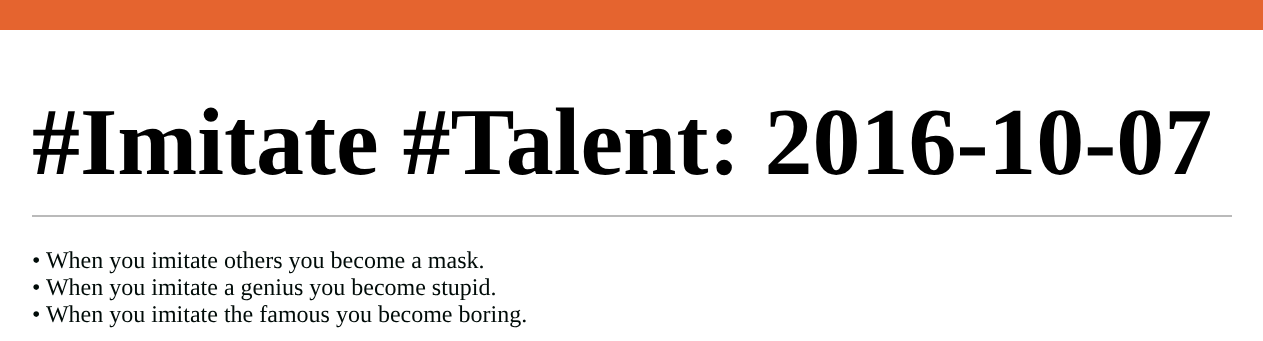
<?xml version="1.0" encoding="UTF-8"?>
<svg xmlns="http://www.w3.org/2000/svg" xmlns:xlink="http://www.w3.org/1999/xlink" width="1263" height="341">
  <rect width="100%" height="100%" fill="#ffffff" />
  <rect width="1263" height="30" fill="#e5642f" />
  <rect x="32" y="215" width="1200" height="2" fill="#bababa" />
  <text x="32" y="174" style="font-family: Liberation Serif; font-size: 96px; font-weight: bold; fill: #000000">#Imitate #Talent: 2016-10-07</text>
  <text x="32" y="268" style="font-family: Liberation Serif; font-size: 24px; fill: #000b08">• When you imitate others you become a mask.</text>
  <text x="32" y="295" style="font-family: Liberation Serif; font-size: 24px; fill: #000b08">• When you imitate a genius you become stupid.</text>
  <text x="32" y="322" style="font-family: Liberation Serif; font-size: 24px; fill: #000b08">• When you imitate the famous you become boring.</text>
</svg>
